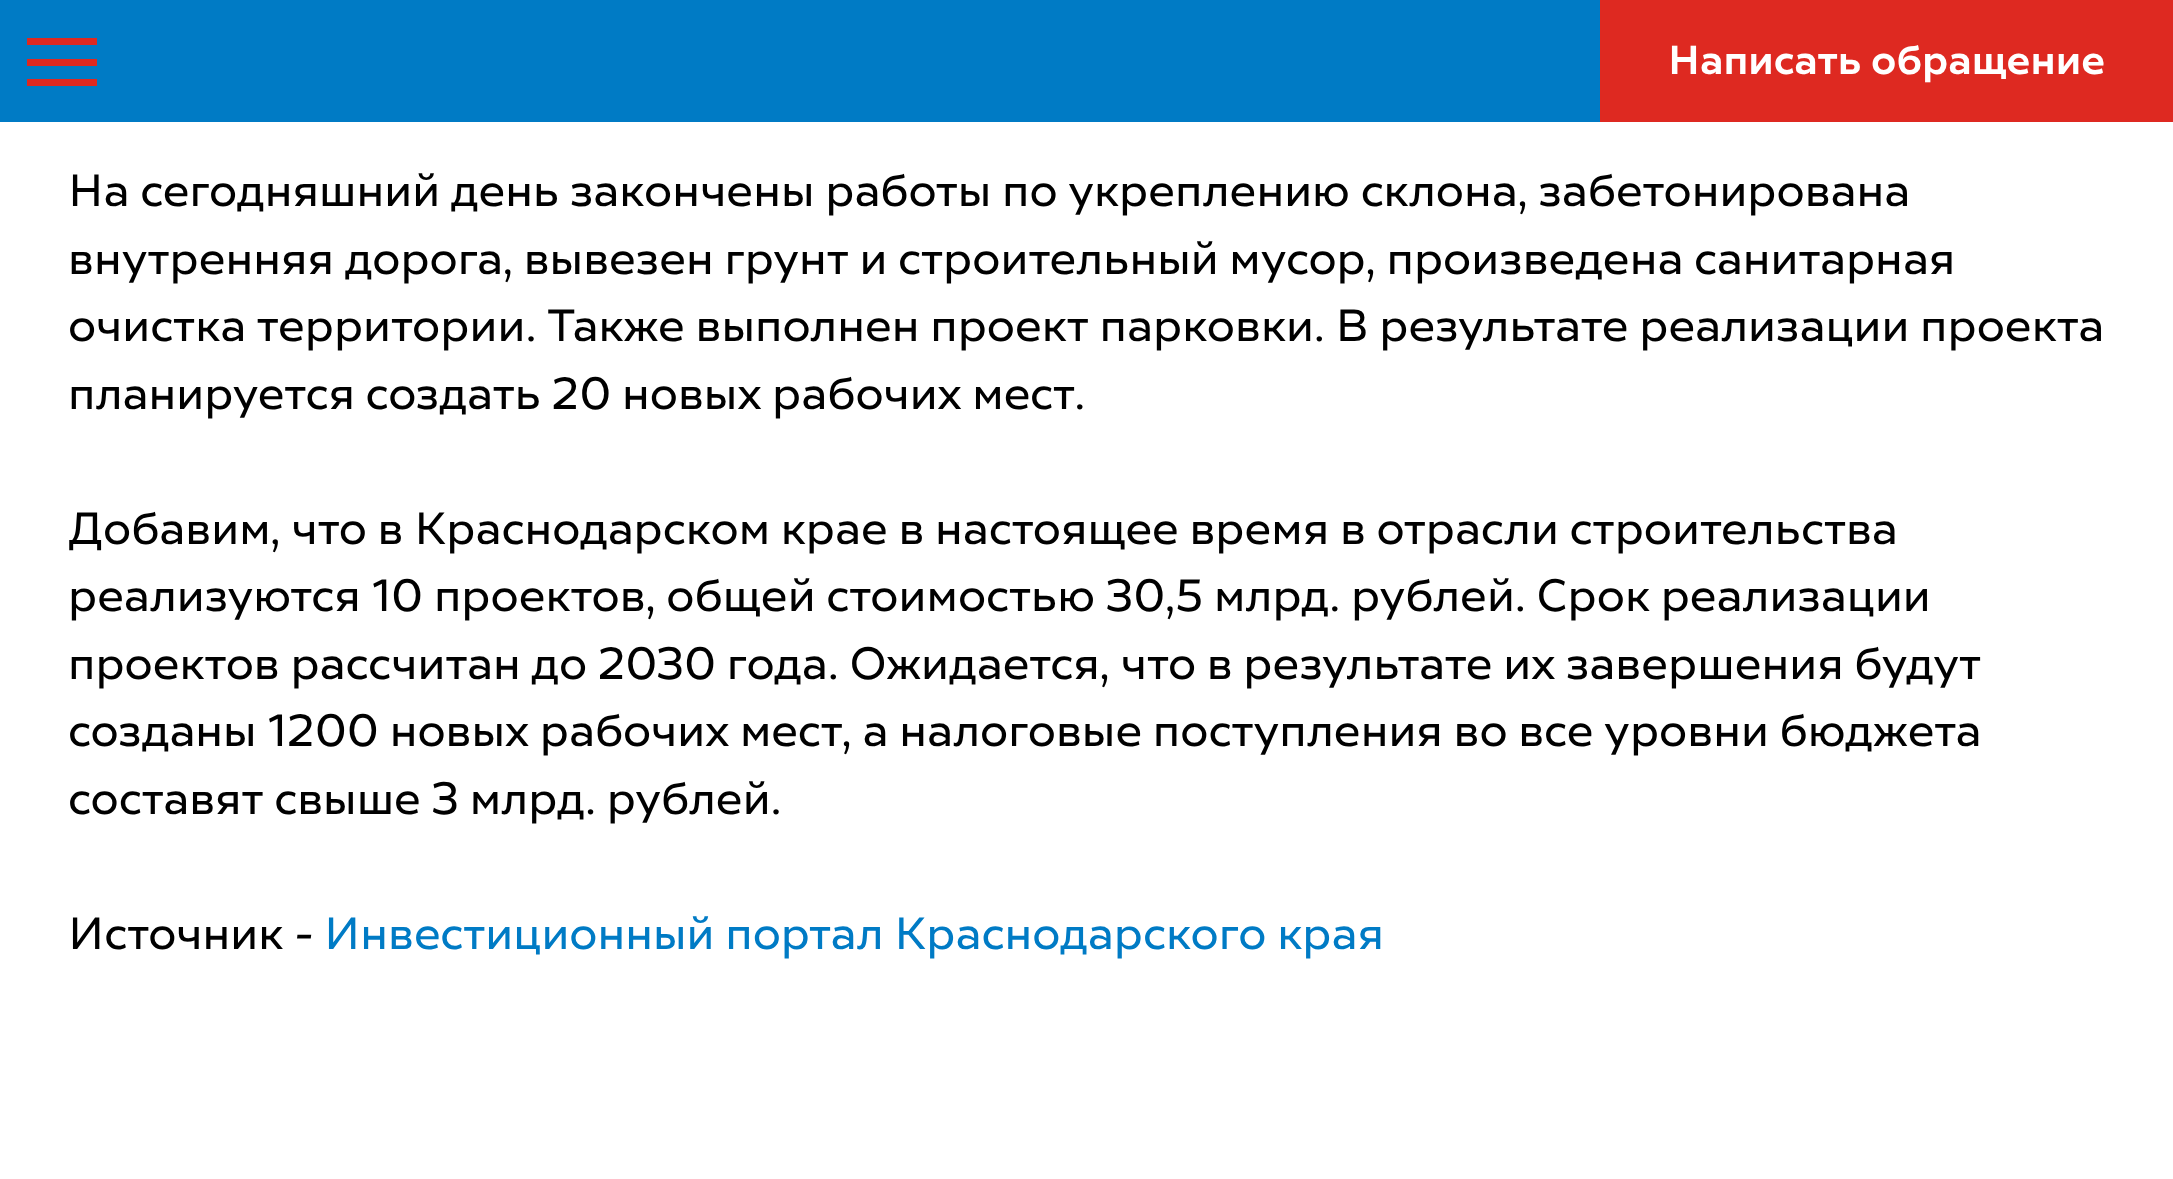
<?xml version="1.0" encoding="UTF-8"?>
<svg xmlns="http://www.w3.org/2000/svg" xmlns:xlink="http://www.w3.org/1999/xlink" width="2173" height="1179">
  <rect width="100%" height="100%" fill="#ffffff" />
  <rect width="1600" height="122" fill="#007bc5" />
  <rect x="27" y="59" width="70" height="7" fill="#de2921" />
  <rect x="27" y="38" width="70" height="7" fill="#de2921" />
  <rect x="27" y="79" width="70" height="7" fill="#de2921" />
  <rect x="1600" width="573" height="122" fill="#de2921" />
  <text x="1668" y="74" style="font-family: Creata; font-size: 40.5px; font-weight: 500; fill: #ffffff">Написать обращение</text>
  <text x="68" y="206" style="font-family: Creata; font-size: 45px; fill: #000000">На сегодняшний день закончены работы по укреплению склона, забетонирована</text>
  <text x="68" y="274" style="font-family: Creata; font-size: 45px; fill: #000000">внутренняя дорога, вывезен грунт и строительный мусор, произведена санитарная</text>
  <text x="68" y="341" style="font-family: Creata; font-size: 45px; fill: #000000">очистка территории. Также выполнен проект парковки. В результате реализации проекта</text>
  <text x="68" y="409" style="font-family: Creata; font-size: 45px; fill: #000000">планируется создать 20 новых рабочих мест.</text>
  <text x="68" y="544" style="font-family: Creata; font-size: 45px; fill: #000000">Добавим, что в Краснодарском крае в настоящее время в отрасли строительства</text>
  <text x="68" y="611" style="font-family: Creata; font-size: 45px; fill: #000000">реализуются 10 проектов, общей стоимостью 30,5 млрд. рублей. Срок реализации</text>
  <text x="68" y="679" style="font-family: Creata; font-size: 45px; fill: #000000">проектов рассчитан до 2030 года. Ожидается, что в результате их завершения будут</text>
  <text x="68" y="746" style="font-family: Creata; font-size: 45px; fill: #000000">созданы 1200 новых рабочих мест, а налоговые поступления во все уровни бюджета</text>
  <text x="68" y="814" style="font-family: Creata; font-size: 45px; fill: #000000">составят свыше 3 млрд. рублей.</text>
  <text x="68" y="949" style="font-family: Creata; font-size: 45px; fill: #000000">Источник -</text>
  <text x="324" y="949" style="font-family: Creata; font-size: 45px; fill: #007bc5">Инвестиционный портал Краснодарского края</text>
</svg>
